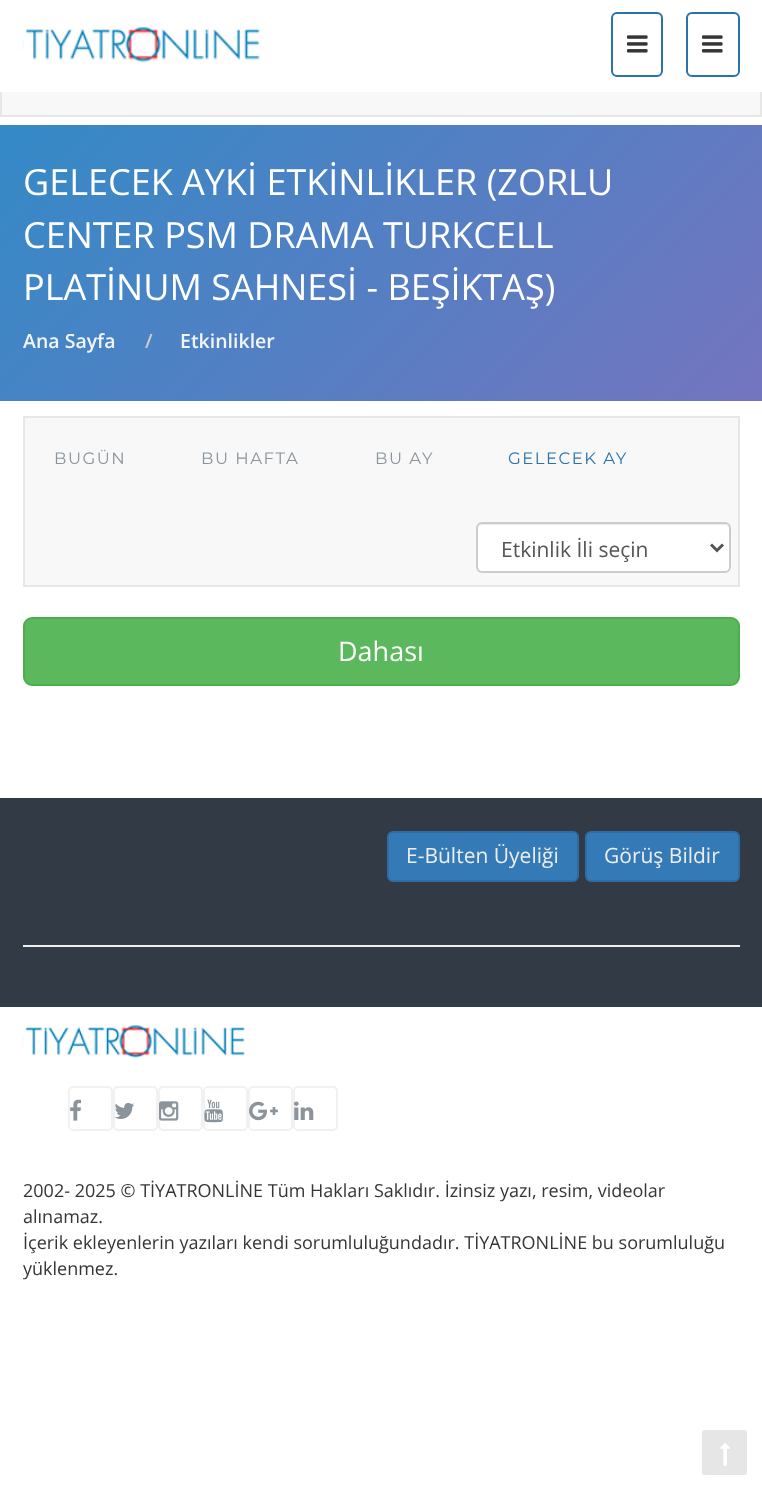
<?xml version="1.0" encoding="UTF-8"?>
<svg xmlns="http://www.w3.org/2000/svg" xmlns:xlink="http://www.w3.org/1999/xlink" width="762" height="1489">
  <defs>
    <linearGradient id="g1" gradientUnits="userSpaceOnUse" x1="641" y1="522" x2="122" y2="3"><stop offset="0" stop-color="#7474bf" /><stop offset="1" stop-color="#348ac7" /></linearGradient>
  </defs>
  <rect width="100%" height="100%" fill="#ffffff" />
  <rect x="2" y="92" width="758" height="23" fill="#f8f8f8" />
  <rect x="1" y="43" width="760" height="73" fill="none" stroke="#e7e7e7" stroke-width="2" />
  <rect y="42" width="762" height="50" fill="#ffffff" />
  <image x="22" y="27" width="238" height="36" xlink:href="image1.png" />
  <rect x="612" y="13" width="50" height="63" rx="5" fill="none" stroke="#2873ac" stroke-width="2" />
  <image x="627" y="35" width="21" height="18" xlink:href="image2.png" />
  <rect x="687" y="13" width="52" height="63" rx="5" fill="none" stroke="#2873ac" stroke-width="2" />
  <image x="702" y="35" width="21" height="18" xlink:href="image2.png" />
  <rect y="125" width="762" height="276" fill="url(#g1)" />
  <rect x="24" y="417" width="715" height="169" fill="#f8f8f8" stroke="#e7e7e7" stroke-width="2" />
  <rect x="476" y="522" width="255" height="51" rx="6" fill="#ffffff" />
  <path d="M 482 525 h 242 c 3 0 5 2 5 5 v -1 c 0 -3 -2 -5 -5 -5 h -242 c -3 0 -5 2 -5 5 v 1 c 0 -3 2 -5 5 -5 z" fill="#ececec" />
  <rect x="477" y="523" width="253" height="49" rx="5" fill="none" stroke="#cccccc" stroke-width="2" />
  <path d="M 711 544.5 l 6 6 l 6 -6" fill="none" stroke="#555555" stroke-width="3" />
  <rect x="24" y="618" width="715" height="67" rx="8" fill="#5cb85c" stroke="#4cae4c" stroke-width="2" />
  <rect y="798" width="762" height="209" fill="#323a45" />
  <rect x="388" y="832" width="190" height="49" rx="5" fill="#337ab7" stroke="#2e6da4" stroke-width="2" />
  <rect x="586" y="832" width="153" height="49" rx="5" fill="#337ab7" stroke="#2e6da4" stroke-width="2" />
  <rect x="23" y="945" width="717" height="2" fill="#eeeeee" />
  <image x="22" y="1025" width="224" height="34" xlink:href="image3.png" />
  <rect x="69" y="1087" width="43" height="43" rx="4" fill="none" stroke="#f1f1f1" stroke-width="2" />
  <image x="70" y="1099" width="12" height="22" xlink:href="image4.png" />
  <rect x="114" y="1087" width="43" height="43" rx="4" fill="none" stroke="#f1f1f1" stroke-width="2" />
  <image x="114" y="1102" width="20" height="17" xlink:href="image5.png" />
  <rect x="159" y="1087" width="43" height="43" rx="4" fill="none" stroke="#f1f1f1" stroke-width="2" />
  <image x="159" y="1101" width="20" height="20" xlink:href="image6.png" />
  <rect x="204" y="1087" width="43" height="43" rx="4" fill="none" stroke="#f1f1f1" stroke-width="2" />
  <image x="204" y="1099" width="19" height="24" xlink:href="image7.png" />
  <rect x="249" y="1087" width="43" height="43" rx="4" fill="none" stroke="#f1f1f1" stroke-width="2" />
  <image x="249" y="1101" width="29" height="20" xlink:href="image8.png" />
  <rect x="294" y="1087" width="43" height="43" rx="4" fill="none" stroke="#f1f1f1" stroke-width="2" />
  <image x="294" y="1101" width="20" height="19" xlink:href="image9.png" />
  <rect x="702" y="1430" width="45" height="45" rx="3" fill="#e6e6e6" />
  <image x="720" y="1443" width="10" height="23" xlink:href="image10.png" />
  <text x="23" y="195" style="font-family: Open Sans; font-size: 36px; fill: #ffffff">GELECEK AYKİ ETKİNLİKLER (ZORLU</text>
  <text x="23" y="248" style="font-family: Open Sans; font-size: 36px; fill: #ffffff">CENTER PSM DRAMA TURKCELL</text>
  <text x="23" y="300" style="font-family: Open Sans; font-size: 36px; fill: #ffffff">PLATİNUM SAHNESİ - BEŞİKTAŞ)</text>
  <text x="23" y="348" style="font-family: Open Sans; font-size: 19.5px; font-weight: 600; fill: #f1f5f9">Ana Sayfa</text>
  <text x="145" y="348" style="font-family: Open Sans; font-size: 19.5px; font-weight: 600; fill: #cccccc">/</text>
  <text x="180" y="348" style="font-family: Open Sans; font-size: 19.5px; font-weight: 600; fill: #f1f5f9">Etkinlikler</text>
  <text x="54" y="464" style="font-family: Montserrat; font-size: 16.5px; font-weight: 100; letter-spacing: 1.5px; fill: #8b949b">BUGÜN</text>
  <text x="201" y="464" style="font-family: Montserrat; font-size: 16.5px; font-weight: 100; letter-spacing: 1.5px; fill: #8b949b">BU HAFTA</text>
  <text x="375" y="464" style="font-family: Montserrat; font-size: 16.5px; font-weight: 100; letter-spacing: 1.5px; fill: #8b949b">BU AY</text>
  <text x="508" y="464" style="font-family: Montserrat; font-size: 16.5px; font-weight: 100; letter-spacing: 1.5px; fill: #2873ac">GELECEK AY</text>
  <text x="501" y="557" style="font-family: Open Sans; font-size: 21px; fill: #555555">Etkinlik İli seçin</text>
  <text x="338" y="661" style="font-family: Open Sans; font-size: 27px; fill: #ffffff">Dahası</text>
  <text x="406" y="863" style="font-family: Open Sans; font-size: 21px; fill: #ededed">E-Bülten Üyeliği</text>
  <text x="604" y="863" style="font-family: Open Sans; font-size: 21px; fill: #ededed">Görüş Bildir</text>
  <text x="23" y="1197" style="font-family: Open Sans; font-size: 18px; fill: #353535">2002- 2025 © TİYATRONLİNE Tüm Hakları Saklıdır. İzinsiz yazı, resim, videolar</text>
  <text x="23" y="1223" style="font-family: Open Sans; font-size: 18px; fill: #353535">alınamaz.</text>
  <text x="23" y="1249" style="font-family: Open Sans; font-size: 18px; fill: #353535">İçerik ekleyenlerin yazıları kendi sorumluluğundadır. TİYATRONLİNE bu sorumluluğu</text>
  <text x="23" y="1275" style="font-family: Open Sans; font-size: 18px; fill: #353535">yüklenmez.</text>
</svg>
